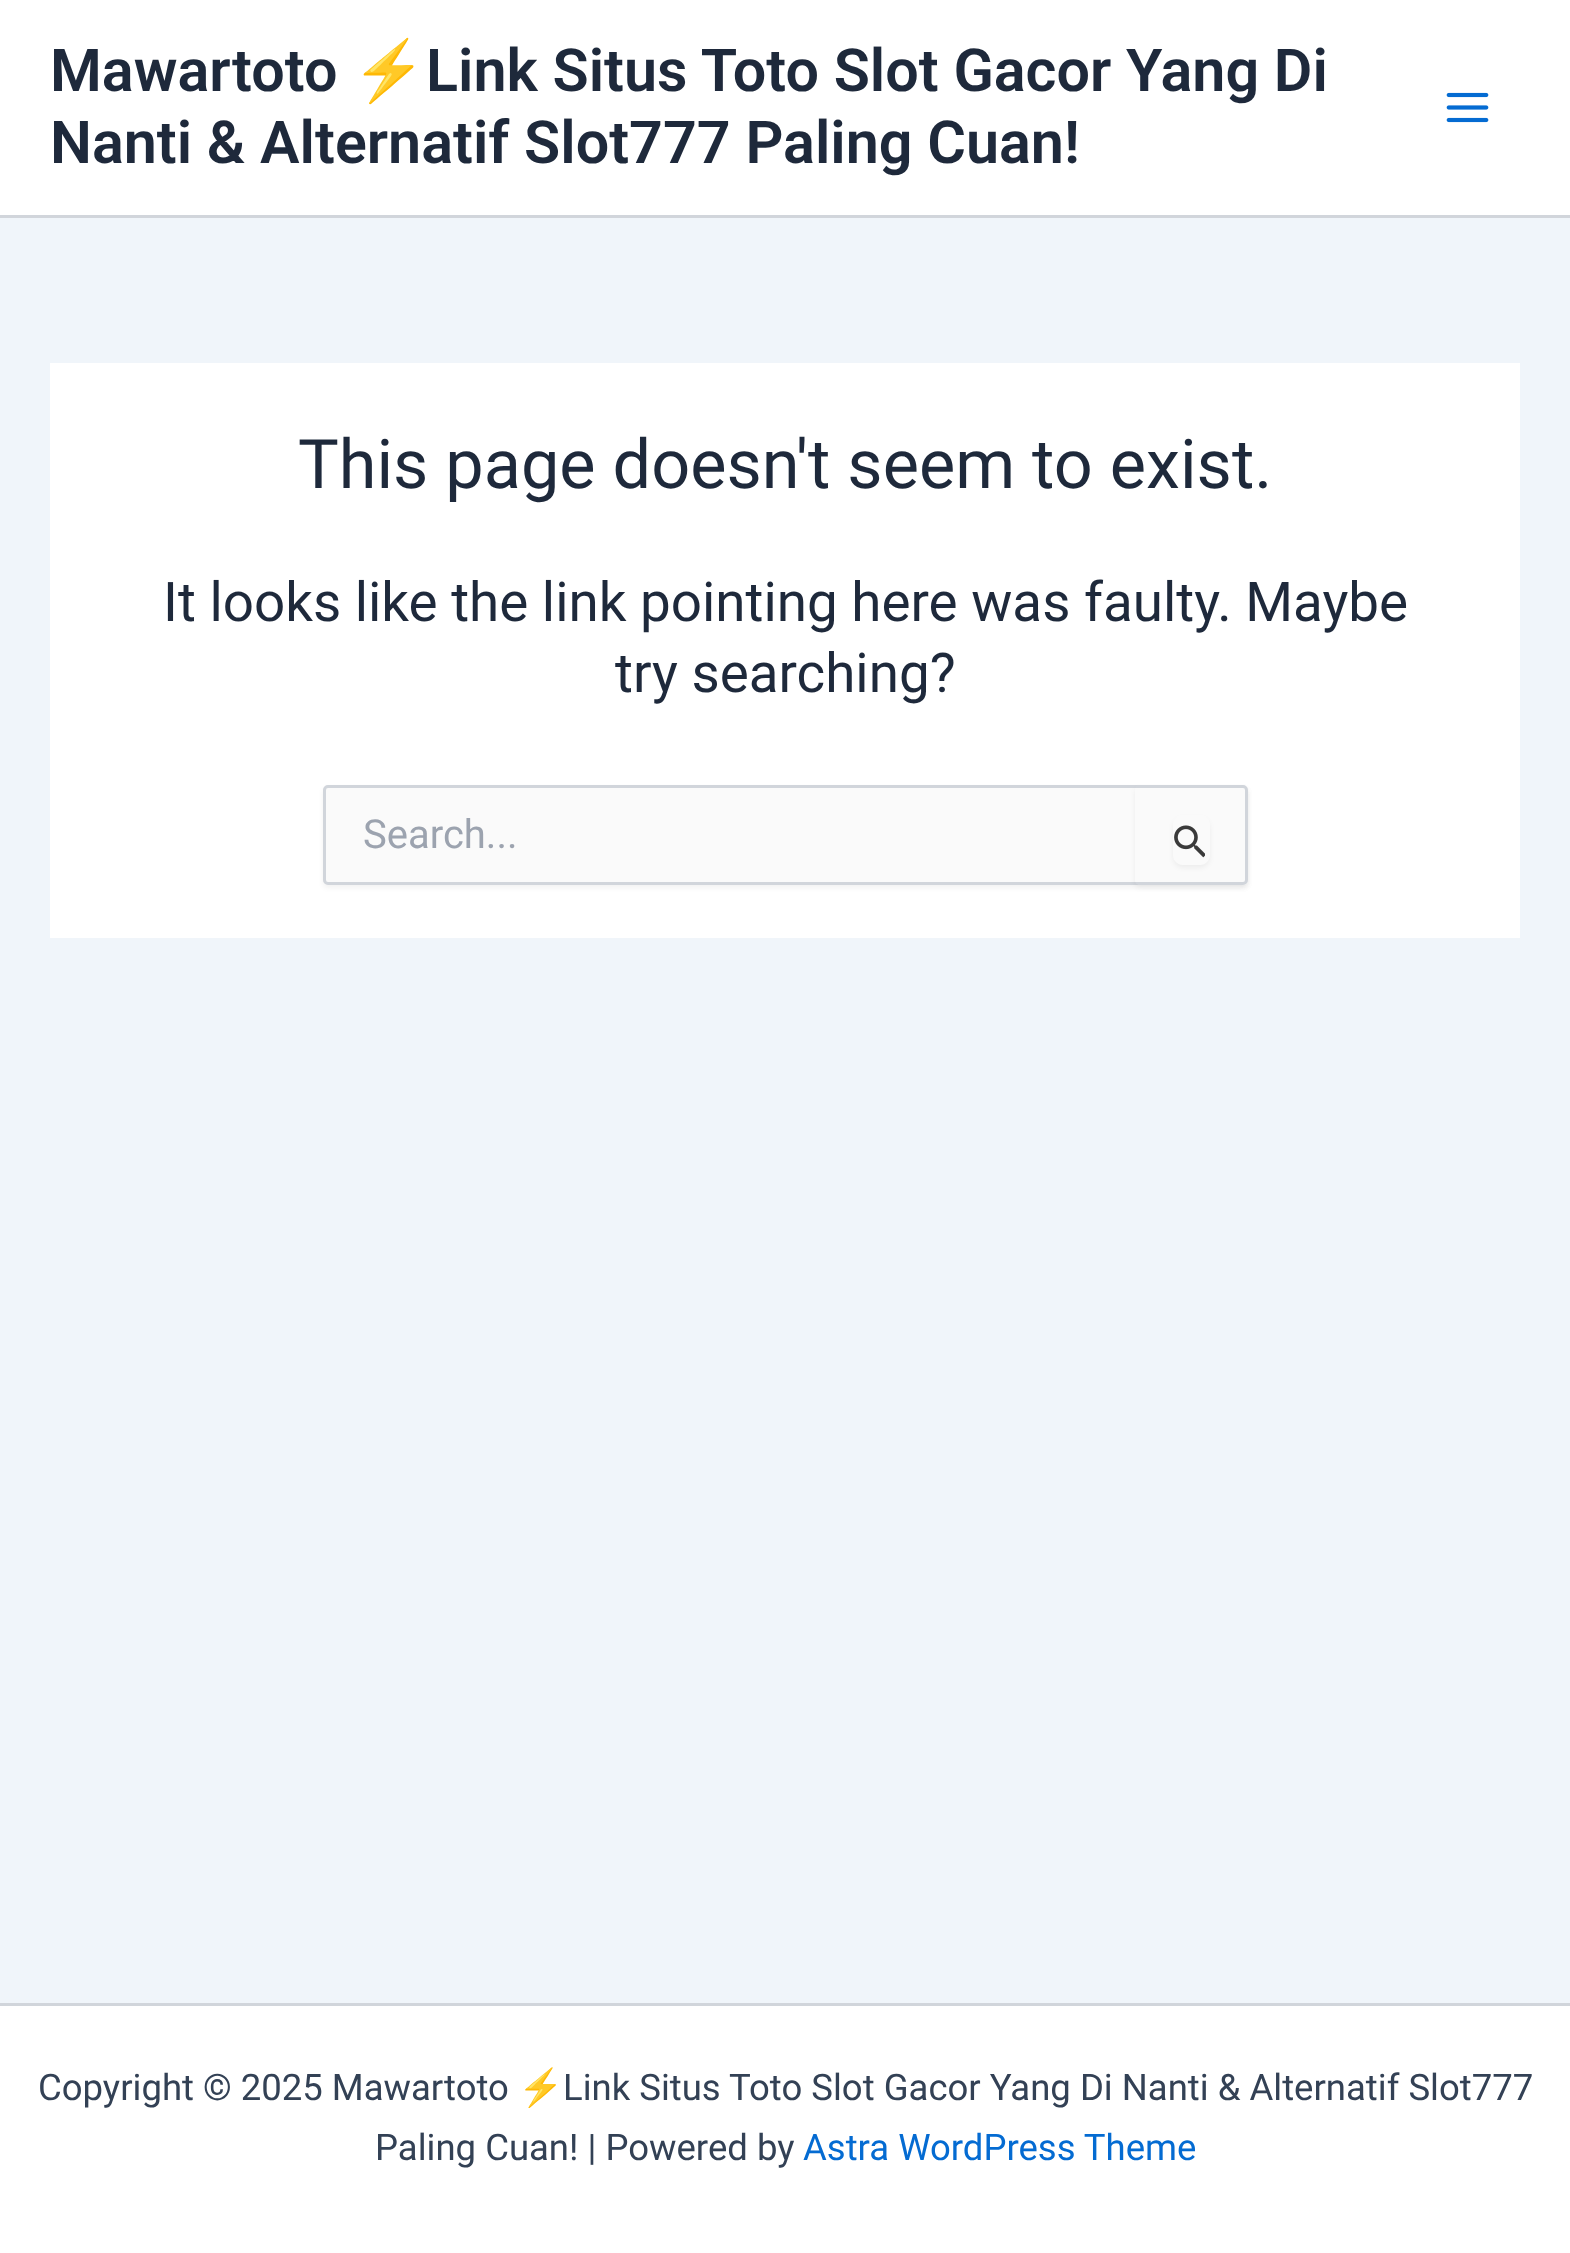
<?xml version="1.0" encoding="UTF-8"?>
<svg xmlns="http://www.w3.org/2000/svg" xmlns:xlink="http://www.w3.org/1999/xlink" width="1570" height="2253">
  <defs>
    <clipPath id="clip1"><path d="M 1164 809 h 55 v 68 h -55 z m 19 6 h 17 c 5.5 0 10 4.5 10 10 v 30 c 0 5.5 -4.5 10 -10 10 h -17 c -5.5 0 -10 -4.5 -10 -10 v -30 c 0 -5.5 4.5 -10 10 -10 z" clip-rule="evenodd" /></clipPath>
    <clipPath id="clip2"><path d="M 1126 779 h 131 v 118 h -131 z m 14 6 h 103 c 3 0 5 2 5 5 v 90 c 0 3 -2 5 -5 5 h -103 c -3 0 -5 -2 -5 -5 v -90 c 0 -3 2 -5 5 -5 z" clip-rule="evenodd" /></clipPath>
  </defs>
  <rect width="100%" height="100%" fill="#f0f5fa" />
  <rect width="1570" height="215" fill="#ffffff" />
  <rect y="215" width="1570" height="3" fill="#d1d5db" />
  <image x="1446" y="92" width="43" height="31" xlink:href="image1.png" />
  <rect x="50" y="363" width="1470" height="575" fill="#ffffff" />
  <rect x="323" y="788" width="925" height="100" rx="5" fill="#000000" fill-opacity="0.05" filter="blur(2.5px)" />
  <rect x="324.5" y="786.5" width="922" height="97" rx="3.5" fill="#fafafa" stroke="#d1d5db" stroke-width="3" />
  <g clip-path="url(#clip1)">
    <rect x="1173" y="818" width="37" height="50" rx="10" fill="#000000" fill-opacity="0.05" filter="blur(2.5px)" />
  </g>
  <image x="1174" y="825" width="31" height="33" xlink:href="image2.png" />
  <g clip-path="url(#clip2)">
    <rect x="1135" y="788" width="113" height="100" rx="5" fill="#000000" fill-opacity="0.05" filter="blur(2.5px)" />
  </g>
  <rect y="2006" width="1570" height="247" fill="#ffffff" />
  <rect y="2003" width="1570" height="3" fill="#d1d5db" />
  <text x="50" y="91" style="font-family: Roboto; font-size: 59.25px; font-weight: 600; fill: #1e293b">Mawartoto</text>
  <text x="352" y="91" style="font-family: Noto Color Emoji; font-size: 59.25px; font-weight: bold; fill: #1e293b">⚡️</text>
  <text x="426" y="91" style="font-family: Roboto; font-size: 59.25px; font-weight: 600; fill: #1e293b">Link Situs Toto Slot Gacor Yang Di</text>
  <text x="50" y="163" style="font-family: Roboto; font-size: 59.25px; font-weight: 600; fill: #1e293b">Nanti &amp; Alternatif Slot777 Paling Cuan!</text>
  <text x="298" y="488" style="font-family: Roboto; font-size: 68.4px; fill: #1e293b">This page doesn't seem to exist.</text>
  <text x="163" y="621" style="font-family: Roboto; font-size: 54.75px; fill: #1e293b">It looks like the link pointing here was faulty. Maybe</text>
  <text x="615" y="692" style="font-family: Roboto; font-size: 54.75px; fill: #1e293b">try searching?</text>
  <text x="363" y="848" style="font-family: Roboto; font-size: 40px; fill: #9ca3af">Search...</text>
  <text x="38" y="2100" style="font-family: Roboto; font-size: 36.5px; fill: #334155">Copyright © 2025 Mawartoto</text>
  <text x="518" y="2100" style="font-family: Noto Color Emoji; font-size: 36.5px; fill: #334155">⚡️</text>
  <text x="563" y="2100" style="font-family: Roboto; font-size: 36.5px; fill: #334155">Link Situs Toto Slot Gacor Yang Di Nanti &amp; Alternatif Slot777</text>
  <text x="375" y="2160" style="font-family: Roboto; font-size: 36.5px; fill: #334155">Paling Cuan! | Powered by</text>
  <text x="803" y="2160" style="font-family: Roboto; font-size: 36.5px; fill: #046bd2">Astra WordPress Theme</text>
</svg>
